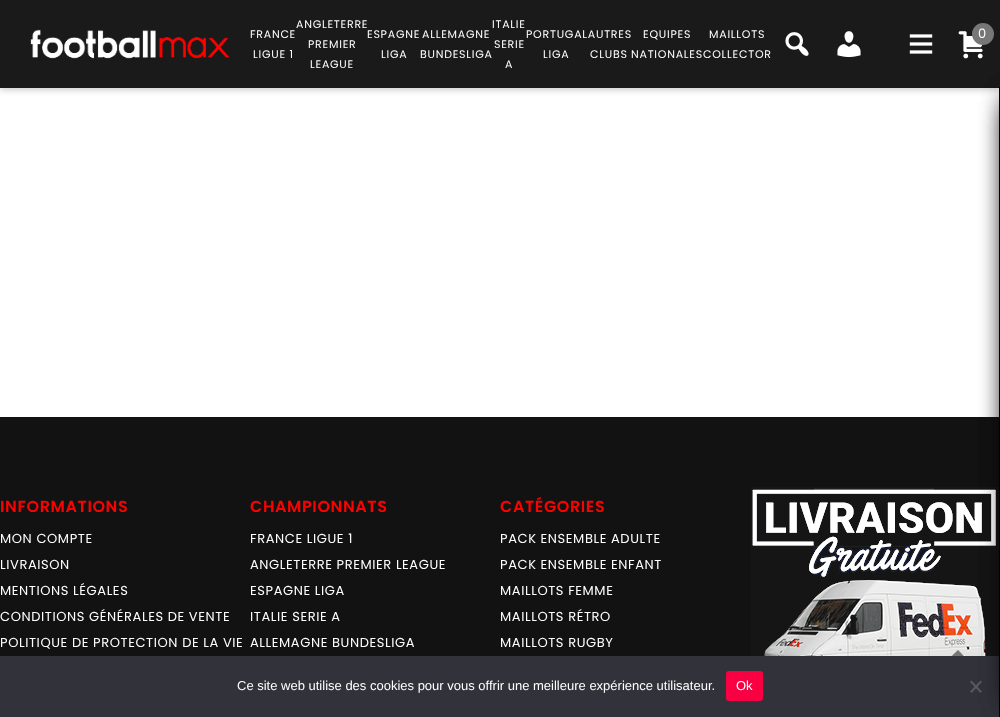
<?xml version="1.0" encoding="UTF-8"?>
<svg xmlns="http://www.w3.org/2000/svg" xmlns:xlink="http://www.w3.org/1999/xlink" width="1000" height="717">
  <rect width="100%" height="100%" fill="#ffffff" />
  <rect y="2" width="1000" height="88" fill="#000000" fill-opacity="0.2" filter="blur(3px)" />
  <rect x="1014" y="102" width="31" height="600" fill="#000000" filter="blur(15px)" />
  <rect width="1000" height="88" fill="#1a1a1a" />
  <image x="30" y="29" width="200" height="30" xlink:href="image1.png" />
  <image x="785" y="32" width="24" height="24" xlink:href="image2.png" />
  <image x="837" y="31" width="24" height="27" xlink:href="image3.png" />
  <image x="909" y="34" width="24" height="20" xlink:href="image4.png" />
  <image x="958" y="31" width="25" height="28" xlink:href="image5.png" />
  <circle cx="983" cy="34" r="11" fill="#787777" />
  <rect y="417" width="999" height="239" fill="#121212" />
  <image x="751" y="487" width="248" height="169" xlink:href="image6.png" />
  <path d="M 958 650 l 24 24 l -24 25 l -25 -25 z" fill="#777777" />
  <rect y="656" width="999" height="61" fill="#32323a" />
  <path d="M 980.5 680.5 l 1.5 1.5 l -10.5 11 l -1.5 -1.5 z" fill="#59595d" />
  <path d="M 970 682 l 1.5 -1.5 l 10.5 11 l -1.5 1.5 z" fill="#59595d" />
  <rect x="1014" y="102" width="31" height="602" fill="#000000" filter="blur(15px)" />
  <rect x="726" y="671" width="37" height="30" rx="3" fill="#f90042" />
  <rect x="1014" y="102" width="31" height="602" fill="#000000" filter="blur(15px)" />
  <rect x="999.5" y="87.5" width="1" height="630" fill="none" stroke="#000000" />
  <text x="250" y="38" style="font-family: Poppins; font-size: 11px; letter-spacing: 0.75px; fill: #ffffff">FRANCE</text>
  <text x="253" y="58" style="font-family: Poppins; font-size: 11px; letter-spacing: 0.75px; fill: #ffffff">LIGUE 1</text>
  <text x="296" y="28" style="font-family: Poppins; font-size: 11px; letter-spacing: 0.75px; fill: #ffffff">ANGLETERRE</text>
  <text x="308" y="48" style="font-family: Poppins; font-size: 11px; letter-spacing: 0.75px; fill: #ffffff">PREMIER</text>
  <text x="310" y="68" style="font-family: Poppins; font-size: 11px; letter-spacing: 0.75px; fill: #ffffff">LEAGUE</text>
  <text x="367" y="38" style="font-family: Poppins; font-size: 11px; letter-spacing: 0.75px; fill: #ffffff">ESPAGNE</text>
  <text x="381" y="58" style="font-family: Poppins; font-size: 11px; letter-spacing: 0.75px; fill: #ffffff">LIGA</text>
  <text x="422" y="38" style="font-family: Poppins; font-size: 11px; letter-spacing: 0.75px; fill: #ffffff">ALLEMAGNE</text>
  <text x="420" y="58" style="font-family: Poppins; font-size: 11px; letter-spacing: 0.75px; fill: #ffffff">BUNDESLIGA</text>
  <text x="492" y="28" style="font-family: Poppins; font-size: 11px; letter-spacing: 0.75px; fill: #ffffff">ITALIE</text>
  <text x="494" y="48" style="font-family: Poppins; font-size: 11px; letter-spacing: 0.75px; fill: #ffffff">SERIE</text>
  <text x="505" y="68" style="font-family: Poppins; font-size: 11px; letter-spacing: 0.75px; fill: #ffffff">A</text>
  <text x="526" y="38" style="font-family: Poppins; font-size: 11px; letter-spacing: 0.75px; fill: #ffffff">PORTUGALAUTRES</text>
  <text x="543" y="58" style="font-family: Poppins; font-size: 11px; letter-spacing: 0.75px; fill: #ffffff">LIGA</text>
  <text x="643" y="38" style="font-family: Poppins; font-size: 11px; letter-spacing: 0.75px; fill: #ffffff">EQUIPES</text>
  <text x="631" y="58" style="font-family: Poppins; font-size: 11px; letter-spacing: 0.75px; fill: #ffffff">NATIONALESCOLLECTOR</text>
  <text x="709" y="38" style="font-family: Poppins; font-size: 11px; letter-spacing: 0.75px; fill: #ffffff">MAILLOTS</text>
  <text x="590" y="58" style="font-family: Poppins; font-size: 11px; letter-spacing: 0.75px; fill: #ffffff">CLUBS</text>
  <text x="978" y="38" style="font-family: Poppins; font-size: 13px; letter-spacing: 0.75px; fill: #ffffff">0</text>
  <text x="0" y="512" style="font-family: Poppins; font-size: 16px; font-weight: 600; letter-spacing: 0.6px; fill: #fe0000">INFORMATIONS</text>
  <text x="0" y="543" style="font-family: Poppins; font-size: 13px; letter-spacing: 0.6px; fill: #ffffff">MON COMPTE</text>
  <text x="0" y="569" style="font-family: Poppins; font-size: 13px; letter-spacing: 0.6px; fill: #ffffff">LIVRAISON</text>
  <text x="0" y="595" style="font-family: Poppins; font-size: 13px; letter-spacing: 0.6px; fill: #ffffff">MENTIONS LÉGALES</text>
  <text x="0" y="621" style="font-family: Poppins; font-size: 13px; letter-spacing: 0.6px; fill: #ffffff">CONDITIONS GÉNÉRALES DE VENTE</text>
  <text x="0" y="647" style="font-family: Poppins; font-size: 13px; letter-spacing: 0.6px; fill: #ffffff">POLITIQUE DE PROTECTION DE LA VIE</text>
  <text x="250" y="512" style="font-family: Poppins; font-size: 16px; font-weight: 600; letter-spacing: 0.6px; fill: #fe0000">CHAMPIONNATS</text>
  <text x="250" y="543" style="font-family: Poppins; font-size: 13px; letter-spacing: 0.6px; fill: #ffffff">FRANCE LIGUE 1</text>
  <text x="250" y="569" style="font-family: Poppins; font-size: 13px; letter-spacing: 0.6px; fill: #ffffff">ANGLETERRE PREMIER LEAGUE</text>
  <text x="250" y="595" style="font-family: Poppins; font-size: 13px; letter-spacing: 0.6px; fill: #ffffff">ESPAGNE LIGA</text>
  <text x="250" y="621" style="font-family: Poppins; font-size: 13px; letter-spacing: 0.6px; fill: #ffffff">ITALIE SERIE A</text>
  <text x="250" y="647" style="font-family: Poppins; font-size: 13px; letter-spacing: 0.6px; fill: #ffffff">ALLEMAGNE BUNDESLIGA</text>
  <text x="500" y="512" style="font-family: Poppins; font-size: 16px; font-weight: 600; letter-spacing: 0.6px; fill: #fe0000">CATÉGORIES</text>
  <text x="500" y="543" style="font-family: Poppins; font-size: 13px; letter-spacing: 0.6px; fill: #ffffff">PACK ENSEMBLE ADULTE</text>
  <text x="500" y="569" style="font-family: Poppins; font-size: 13px; letter-spacing: 0.6px; fill: #ffffff">PACK ENSEMBLE ENFANT</text>
  <text x="500" y="595" style="font-family: Poppins; font-size: 13px; letter-spacing: 0.6px; fill: #ffffff">MAILLOTS FEMME</text>
  <text x="500" y="621" style="font-family: Poppins; font-size: 13px; letter-spacing: 0.6px; fill: #ffffff">MAILLOTS RÉTRO</text>
  <text x="500" y="647" style="font-family: Poppins; font-size: 13px; letter-spacing: 0.6px; fill: #ffffff">MAILLOTS RUGBY</text>
  <text x="237" y="690" style="font-family: Liberation Sans; font-size: 13px; fill: #ffffff">Ce site web utilise des cookies pour vous offrir une meilleure expérience utilisateur.</text>
  <text x="736" y="690" style="font-family: Liberation Sans; font-size: 13px; fill: #ffffff">Ok</text>
</svg>
